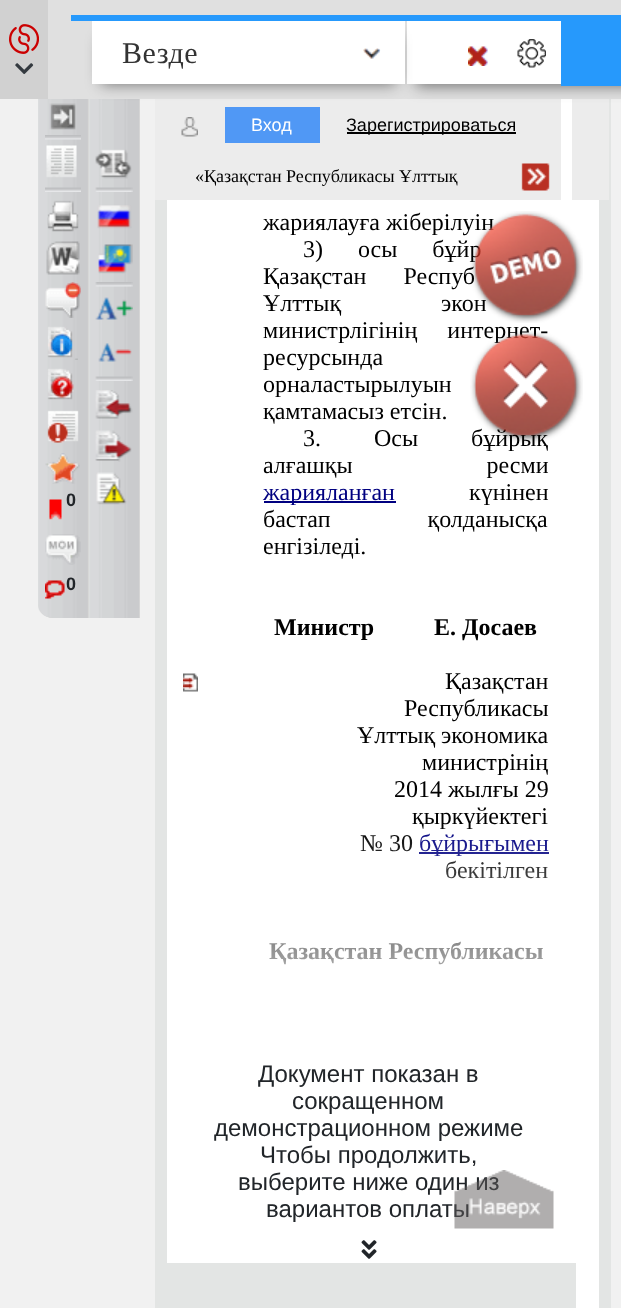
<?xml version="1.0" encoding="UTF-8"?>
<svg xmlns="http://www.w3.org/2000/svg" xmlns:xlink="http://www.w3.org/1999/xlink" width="621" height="1308">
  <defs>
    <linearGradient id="g1" gradientUnits="userSpaceOnUse" x1="369" y1="821" x2="369" y2="1046"><stop offset="0" stop-color="#ffffff" stop-opacity="0" /><stop offset="1" stop-color="#ffffff" /></linearGradient>
  </defs>
  <rect width="100%" height="100%" fill="#f1f1f1" />
  <rect width="48" height="99" fill="#d1d1d1" />
  <image x="9" y="24" width="30" height="30" xlink:href="image1.png" />
  <image x="15" y="63" width="19" height="12" xlink:href="image2.png" />
  <rect x="167" y="99" width="432" height="1209" fill="#ffffff" />
  <rect x="161" y="-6" width="444" height="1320" fill="none" stroke="#e3e5e4" stroke-width="12" />
  <rect x="48" width="573" height="99" fill="#e0e0e0" />
  <rect x="155" y="99" width="406" height="101" fill="#ececec" />
  <rect x="572" y="99" width="37" height="101" fill="#ececec" />
  <rect x="416" y="33" width="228" height="53" fill="#000000" fill-opacity="0.5" filter="blur(7.5px)" />
  <rect x="71" y="15" width="550" height="6" fill="#2699fc" />
  <rect x="407" y="21" width="154" height="63" fill="#ffffff" />
  <image x="468" y="46" width="20" height="20" xlink:href="image3.png" />
  <image x="517" y="39" width="29" height="29" xlink:href="image4.png" />
  <rect x="561" y="21" width="60" height="65" fill="#2699fc" />
  <rect x="225" y="107" width="95" height="36" fill="#5098f5" />
  <path d="M 38 99 h 51 v 519 h -36 c -8.5 0 -15 -6.5 -15 -15 z" fill="#d1d1cf" />
  <image x="38" y="99" width="50" height="519" xlink:href="image8.png" />
  <rect x="139" y="99" width="1" height="519" fill="#d1d1cf" />
  <image x="88" y="99" width="52" height="519" xlink:href="image23.png" />
  <rect x="101" y="39" width="295" height="45" fill="#000000" fill-opacity="0.5" filter="blur(7.5px)" />
  <rect x="92" y="21" width="313" height="63" fill="#ffffff" />
  <image x="363" y="48" width="18" height="11" xlink:href="image5.png" />
  <image x="181" y="117" width="17" height="20" xlink:href="image6.png" />
  <rect x="347" y="132" width="169" height="2" fill="#000000" />
  <image x="521" y="163" width="29" height="28" xlink:href="image7.png" />
  <image x="49" y="103" width="27" height="27" xlink:href="image9.png" />
  <image x="45" y="135" width="36" height="5" xlink:href="image10.png" />
  <image x="46" y="145" width="31" height="33" xlink:href="image11.png" />
  <image x="45" y="187" width="36" height="5" xlink:href="image12.png" />
  <image x="47" y="200" width="32" height="32" xlink:href="image13.png" />
  <image x="46" y="241" width="34" height="34" xlink:href="image14.png" />
  <image x="45" y="282" width="36" height="36" xlink:href="image15.png" />
  <image x="47" y="326" width="31" height="34" xlink:href="image16.png" />
  <image x="47" y="368" width="27" height="32" xlink:href="image17.png" />
  <image x="47" y="410" width="32" height="33" xlink:href="image18.png" />
  <image x="45" y="453" width="35" height="31" xlink:href="image19.png" />
  <image x="49" y="499" width="13" height="21" xlink:href="image20.png" />
  <image x="45" y="534" width="36" height="31" xlink:href="image21.png" />
  <image x="45" y="580" width="20" height="19" xlink:href="image22.png" />
  <image x="95" y="149" width="37" height="30" xlink:href="image24.png" />
  <image x="95" y="187" width="38" height="5" xlink:href="image25.png" />
  <image x="97" y="205" width="35" height="24" xlink:href="image26.png" />
  <image x="98" y="244" width="35" height="30" xlink:href="image27.png" />
  <image x="95" y="282" width="38" height="5" xlink:href="image28.png" />
  <image x="95" y="297" width="38" height="23" xlink:href="image29.png" />
  <image x="98" y="343" width="34" height="19" xlink:href="image30.png" />
  <image x="95" y="376" width="38" height="5" xlink:href="image25.png" />
  <image x="95" y="390" width="38" height="29" xlink:href="image31.png" />
  <image x="95" y="430" width="37" height="32" xlink:href="image32.png" />
  <image x="96" y="472" width="31" height="33" xlink:href="image33.png" />
  <rect x="264" y="501" width="132" height="2" fill="#000080" />
  <image x="183" y="673" width="15" height="19" xlink:href="image36.png" />
  <rect x="419" y="852" width="130" height="2" fill="#000080" />
  <image x="361" y="1240" width="16" height="19" xlink:href="image37.png" />
  <rect x="167" y="1263" width="409" height="45" fill="#e3e5e4" />
  <text x="122" y="63" style="font-family: Liberation Serif; font-size: 30px; letter-spacing: 0.5px; fill: #333333">Везде</text>
  <text x="251" y="131" style="font-family: Liberation Sans; font-size: 18px; fill: #ffffff">Вход</text>
  <text x="346" y="131" style="font-family: Liberation Sans; font-size: 18px; fill: #000000">Зарегистрироваться</text>
  <text x="195" y="182" style="font-family: Liberation Serif; font-size: 18px; fill: #000000">«Қазақстан Республикасы Ұлттық</text>
  <text x="66" y="506" style="font-family: Liberation Sans; font-size: 18px; font-weight: bold; fill: #212529">0</text>
  <text x="66" y="590" style="font-family: Liberation Sans; font-size: 18px; font-weight: bold; fill: #212529">0</text>
  <text x="263" y="230" style="font-family: Liberation Serif; font-size: 24px; fill: #000000">жариялауға жіберілуін</text>
  <text x="303" y="257" word-spacing="29" style="font-family: Liberation Serif; font-size: 24px; fill: #000000">3) осы бұйр</text>
  <text x="263" y="284" word-spacing="31" style="font-family: Liberation Serif; font-size: 24px; fill: #000000">Қазақстан Респуб</text>
  <text x="263" y="311" word-spacing="94" style="font-family: Liberation Serif; font-size: 24px; fill: #000000">Ұлттық экон</text>
  <text x="263" y="338" word-spacing="24" style="font-family: Liberation Serif; font-size: 24px; fill: #000000">министрлігінің интернет-</text>
  <image x="470" y="211" width="113" height="112" xlink:href="image34.png" />
  <text x="263" y="365" style="font-family: Liberation Serif; font-size: 24px; fill: #000000">ресурсында</text>
  <text x="263" y="392" style="font-family: Liberation Serif; font-size: 24px; fill: #000000">орналастырылуын</text>
  <text x="263" y="419" style="font-family: Liberation Serif; font-size: 24px; fill: #000000">қамтамасыз етсін.</text>
  <text x="303" y="446" word-spacing="47" style="font-family: Liberation Serif; font-size: 24px; fill: #000000">3. Осы бұйрық</text>
  <image x="470" y="331" width="113" height="112" xlink:href="image35.png" />
  <text x="263" y="473" word-spacing="128" style="font-family: Liberation Serif; font-size: 24px; fill: #000000">алғашқы ресми</text>
  <text x="263" y="500" style="font-family: Liberation Serif; font-size: 24px; fill: #000080">жарияланған</text>
  <text x="469" y="500" style="font-family: Liberation Serif; font-size: 24px; fill: #000000">күнінен</text>
  <text x="263" y="527" word-spacing="91" style="font-family: Liberation Serif; font-size: 24px; fill: #000000">бастап қолданысқа</text>
  <text x="263" y="554" style="font-family: Liberation Serif; font-size: 24px; fill: #000000">енгізіледі.</text>
  <text x="274" y="635" style="font-family: Liberation Serif; font-size: 24px; font-weight: bold; fill: #000000">Министр</text>
  <text x="434" y="635" style="font-family: Liberation Serif; font-size: 24px; font-weight: bold; fill: #000000">Е. Досаев</text>
  <text x="445" y="689" style="font-family: Liberation Serif; font-size: 24px; fill: #000000">Қазақстан</text>
  <text x="404" y="716" style="font-family: Liberation Serif; font-size: 24px; fill: #000000">Республикасы</text>
  <text x="357" y="743" style="font-family: Liberation Serif; font-size: 24px; fill: #000000">Ұлттық экономика</text>
  <text x="422" y="770" style="font-family: Liberation Serif; font-size: 24px; fill: #000000">министрінің</text>
  <text x="394" y="797" style="font-family: Liberation Serif; font-size: 24px; fill: #000000">2014 жылғы 29</text>
  <text x="412" y="824" style="font-family: Liberation Serif; font-size: 24px; fill: #000000">қыркүйектегі</text>
  <text x="360" y="851" style="font-family: Liberation Serif; font-size: 24px; fill: #000000">№ 30</text>
  <text x="419" y="851" style="font-family: Liberation Serif; font-size: 24px; fill: #000080">бұйрығымен</text>
  <text x="445" y="878" style="font-family: Liberation Serif; font-size: 24px; fill: #000000">бекітілген</text>
  <text x="269" y="959" style="font-family: Liberation Serif; font-size: 24px; font-weight: bold; fill: #000000">Қазақстан Республикасы</text>
  <rect x="269" y="826" width="280" height="139" fill="url(#g1)" />
  <text x="258" y="1082" style="font-family: Liberation Sans; font-size: 24px; fill: #212529">Документ показан в</text>
  <text x="292" y="1109" style="font-family: Liberation Sans; font-size: 24px; fill: #212529">сокращенном</text>
  <text x="214" y="1136" style="font-family: Liberation Sans; font-size: 24px; fill: #212529">демонстрационном режиме</text>
  <text x="260" y="1163" style="font-family: Liberation Sans; font-size: 24px; fill: #212529">Чтобы продолжить,</text>
  <text x="238" y="1190" style="font-family: Liberation Sans; font-size: 24px; fill: #212529">выберите ниже один из</text>
  <text x="266" y="1217" style="font-family: Liberation Sans; font-size: 24px; fill: #212529">вариантов оплаты</text>
  <image x="454" y="1170" width="100" height="59" xlink:href="image38.png" />
</svg>
